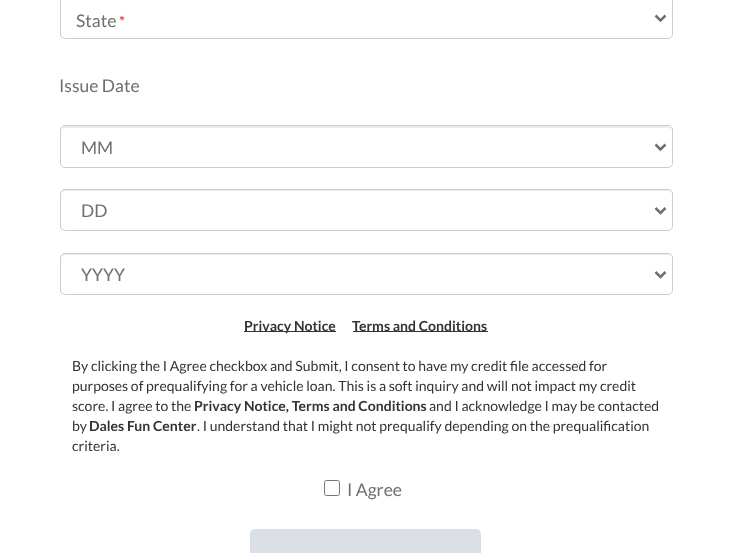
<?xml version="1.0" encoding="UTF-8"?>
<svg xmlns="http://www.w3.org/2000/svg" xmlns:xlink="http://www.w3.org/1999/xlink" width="731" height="553">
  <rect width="100%" height="100%" fill="#ffffff" />
  <rect x="60.5" y="-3.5" width="612" height="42" rx="4.5" fill="none" stroke="#cccccc" />
  <path d="M 655.5 15.5 l 5 5 l 5 -5" fill="none" stroke="#6e6f71" stroke-width="2.5" />
  <path d="M 65 128 h 603 c 2 0 3 1 3 3 v -1 c 0 -2 -2 -4 -4 -4 h -602 c -2 0 -4 2 -4 4 v 1 c 0 -2 2 -3 4 -3 z" fill="#ececec" />
  <rect x="60.5" y="125.5" width="612" height="42" rx="4.5" fill="none" stroke="#cccccc" />
  <path d="M 655.5 144.5 l 5 5 l 5 -5" fill="none" stroke="#6e6f71" stroke-width="2.5" />
  <path d="M 65 191 h 603 c 2 0 3 2 3 4 v -1 c 0 -2 -2 -4 -4 -4 h -602 c -2 0 -4 2 -4 4 v 1 c 0 -2 2 -4 4 -4 z" fill="#ececec" />
  <rect x="60.5" y="189.5" width="612" height="41" rx="4.5" fill="none" stroke="#cccccc" />
  <path d="M 655.5 208 l 5 5 l 5 -5" fill="none" stroke="#6e6f71" stroke-width="2.5" />
  <path d="M 65 255 h 603 c 2 0 3 2 3 4 v -1 c 0 -2 -2 -4 -4 -4 h -602 c -2 0 -4 2 -4 4 v 1 c 0 -2 2 -4 4 -4 z" fill="#ececec" />
  <rect x="60.5" y="253.5" width="612" height="41" rx="4.5" fill="none" stroke="#cccccc" />
  <path d="M 655.5 272 l 5 5 l 5 -5" fill="none" stroke="#6e6f71" stroke-width="2.5" />
  <rect x="244" y="331" width="92" height="1" fill="#333333" />
  <rect x="353" y="331" width="135" height="1" fill="#333333" />
  <rect x="324.5" y="480.5" width="15" height="15" rx="2" fill="none" stroke="#767676" />
  <rect x="250" y="529" width="231" height="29" rx="5" fill="#d9dfe4" />
  <text x="76" y="27" style="font-family: Lato; font-size: 17.5px; fill: #6e6f71">State</text>
  <text x="119" y="27" style="font-family: Lato; font-size: 15px; fill: #d93025">*</text>
  <text x="59" y="92" style="font-family: Lato; font-size: 17.5px; fill: #6e6f71">Issue Date</text>
  <text x="81" y="154" style="font-family: Lato; font-size: 17.5px; fill: #6e6f71">MM</text>
  <text x="81" y="217" style="font-family: Lato; font-size: 17.5px; fill: #6e6f71">DD</text>
  <text x="81" y="281" style="font-family: Lato; font-size: 17.5px; fill: #6e6f71">YYYY</text>
  <text x="244" y="331" style="font-family: Lato; font-size: 14px; font-weight: bold; fill: #333333">Privacy Notice</text>
  <text x="352" y="331" style="font-family: Lato; font-size: 14px; font-weight: bold; fill: #333333">Terms and Conditions</text>
  <text x="72" y="371" style="font-family: Lato; font-size: 14px; fill: #333333">By clicking the I Agree checkbox and Submit, I consent to have my credit file accessed for</text>
  <text x="72" y="391" style="font-family: Lato; font-size: 14px; fill: #333333">purposes of prequalifying for a vehicle loan. This is a soft inquiry and will not impact my credit</text>
  <text x="72" y="411" style="font-family: Lato; font-size: 14px; fill: #333333">score. I agree to the</text>
  <text x="194" y="411" style="font-family: Lato; font-size: 14px; font-weight: bold; fill: #333333">Privacy Notice, Terms and Conditions</text>
  <text x="429" y="411" style="font-family: Lato; font-size: 14px; fill: #333333">and I acknowledge I may be contacted</text>
  <text x="72" y="431" style="font-family: Lato; font-size: 14px; fill: #333333">by</text>
  <text x="89" y="431" style="font-family: Lato; font-size: 14px; font-weight: bold; fill: #333333">Dales Fun Center</text>
  <text x="197" y="431" style="font-family: Lato; font-size: 14px; fill: #333333">. I understand that I might not prequalify depending on the prequalification</text>
  <text x="72" y="451" style="font-family: Lato; font-size: 14px; fill: #333333">criteria.</text>
  <text x="347" y="496" style="font-family: Lato; font-size: 17.5px; fill: #6e6f71">I Agree</text>
</svg>
